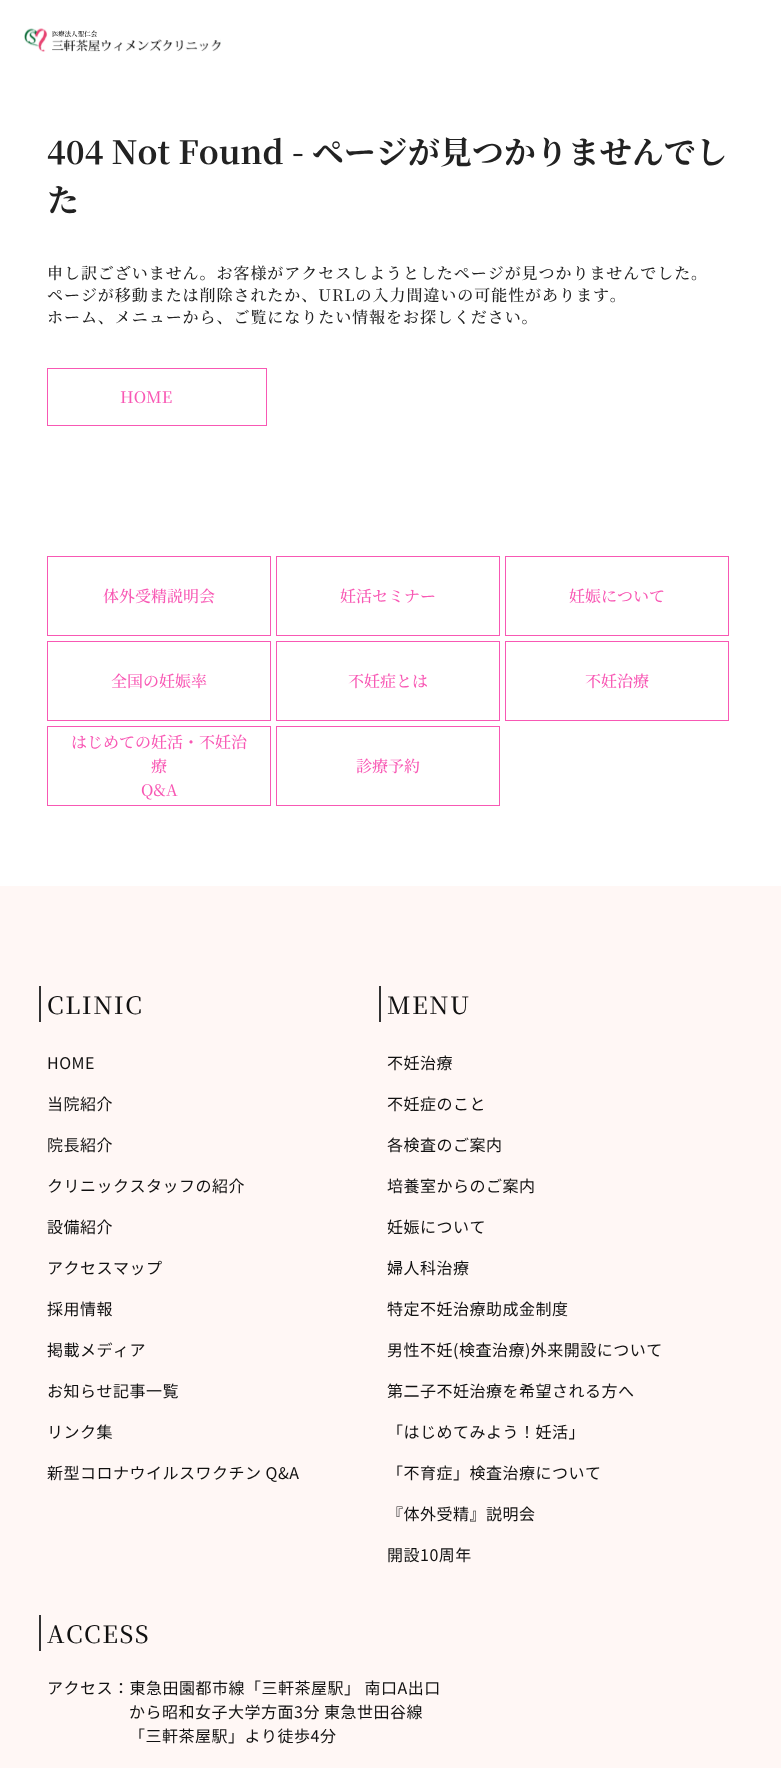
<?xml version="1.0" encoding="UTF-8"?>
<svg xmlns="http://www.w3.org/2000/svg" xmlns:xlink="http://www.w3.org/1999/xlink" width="781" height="1768">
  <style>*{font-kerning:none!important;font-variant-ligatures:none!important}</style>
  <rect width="100%" height="100%" fill="#ffffff" />
  <image x="24" y="28" width="197" height="24" xlink:href="image1.png" />
  <rect x="47.5" y="368.5" width="219" height="57" fill="none" stroke="#f858b4" />
  <rect x="47.5" y="556.5" width="223" height="79" fill="none" stroke="#f858b4" />
  <rect x="276.5" y="556.5" width="223" height="79" fill="none" stroke="#f858b4" />
  <rect x="505.5" y="556.5" width="223" height="79" fill="none" stroke="#f858b4" />
  <rect x="47.5" y="641.5" width="223" height="79" fill="none" stroke="#f858b4" />
  <rect x="276.5" y="641.5" width="223" height="79" fill="none" stroke="#f858b4" />
  <rect x="505.5" y="641.5" width="223" height="79" fill="none" stroke="#f858b4" />
  <rect x="47.5" y="726.5" width="223" height="79" fill="none" stroke="#f858b4" />
  <rect x="276.5" y="726.5" width="223" height="79" fill="none" stroke="#f858b4" />
  <rect y="886" width="781" height="882" fill="#fff7f5" />
  <rect x="39" y="986" width="2" height="36" fill="#333333" />
  <rect x="379" y="986" width="2" height="36" fill="#333333" />
  <rect x="39" y="1615" width="2" height="36" fill="#333333" />
  <text x="47" y="164" style="font-family: Noto Serif JP; font-size: 32px; font-weight: bold; fill: #222222">404 Not Found</text>
  <text x="292" y="164" style="font-family: Noto Serif JP; font-size: 32px; font-weight: bold; fill: #222222">- ページが見つかりませんでし</text>
  <text x="47" y="212" style="font-family: Noto Serif JP; font-size: 32px; font-weight: bold; fill: #222222">た</text>
  <text x="47" y="279" style="font-family: Noto Serif JP; font-size: 16px; font-weight: 500; letter-spacing: 0.95px; fill: #222222">申し訳ございません。お客様がアクセスしようとしたページが見つかりませんでした。</text>
  <text x="47" y="301" style="font-family: Noto Serif JP; font-size: 16px; font-weight: 500; letter-spacing: 0.95px; fill: #222222">ページが移動または削除されたか、URLの入力間違いの可能性があります。</text>
  <text x="47" y="323" style="font-family: Noto Serif JP; font-size: 16px; font-weight: 500; letter-spacing: 0.95px; fill: #222222">ホーム、メニューから、ご覧になりたい情報をお探しください。</text>
  <text x="120" y="403" style="font-family: Noto Serif JP; font-size: 16px; font-weight: 500; fill: #f858b4">HOME</text>
  <text x="103" y="602" style="font-family: Noto Serif JP; font-size: 16px; font-weight: 500; fill: #f858b4">体外受精説明会</text>
  <text x="340" y="602" style="font-family: Noto Serif JP; font-size: 16px; font-weight: 500; fill: #f858b4">妊活セミナー</text>
  <text x="569" y="602" style="font-family: Noto Serif JP; font-size: 16px; font-weight: 500; fill: #f858b4">妊娠について</text>
  <text x="111" y="687" style="font-family: Noto Serif JP; font-size: 16px; font-weight: 500; fill: #f858b4">全国の妊娠率</text>
  <text x="348" y="687" style="font-family: Noto Serif JP; font-size: 16px; font-weight: 500; fill: #f858b4">不妊症とは</text>
  <text x="585" y="687" style="font-family: Noto Serif JP; font-size: 16px; font-weight: 500; fill: #f858b4">不妊治療</text>
  <text x="71" y="748" style="font-family: Noto Serif JP; font-size: 16px; font-weight: 500; fill: #f858b4">はじめての妊活・不妊治</text>
  <text x="151" y="772" style="font-family: Noto Serif JP; font-size: 16px; font-weight: 500; fill: #f858b4">療</text>
  <text x="141" y="796" style="font-family: Noto Serif JP; font-size: 16px; font-weight: 500; fill: #f858b4">Q&amp;A</text>
  <text x="356" y="772" style="font-family: Noto Serif JP; font-size: 16px; font-weight: 500; fill: #f858b4">診療予約</text>
  <text x="47" y="1014" style="font-family: Noto Serif JP; font-size: 24px; font-weight: 500; letter-spacing: 1.5px; fill: #111111">CLINIC</text>
  <text x="47" y="1069" style="font-family: Noto Sans JP; font-size: 16px; letter-spacing: 0.5px; fill: #111111">HOME</text>
  <text x="47" y="1110" style="font-family: Noto Sans JP; font-size: 16px; letter-spacing: 0.5px; fill: #111111">当院紹介</text>
  <text x="47" y="1151" style="font-family: Noto Sans JP; font-size: 16px; letter-spacing: 0.5px; fill: #111111">院長紹介</text>
  <text x="47" y="1192" style="font-family: Noto Sans JP; font-size: 16px; letter-spacing: 0.5px; fill: #111111">クリニックスタッフの紹介</text>
  <text x="47" y="1233" style="font-family: Noto Sans JP; font-size: 16px; letter-spacing: 0.5px; fill: #111111">設備紹介</text>
  <text x="47" y="1274" style="font-family: Noto Sans JP; font-size: 16px; letter-spacing: 0.5px; fill: #111111">アクセスマップ</text>
  <text x="47" y="1315" style="font-family: Noto Sans JP; font-size: 16px; letter-spacing: 0.5px; fill: #111111">採用情報</text>
  <text x="47" y="1356" style="font-family: Noto Sans JP; font-size: 16px; letter-spacing: 0.5px; fill: #111111">掲載メディア</text>
  <text x="47" y="1397" style="font-family: Noto Sans JP; font-size: 16px; letter-spacing: 0.5px; fill: #111111">お知らせ記事一覧</text>
  <text x="47" y="1438" style="font-family: Noto Sans JP; font-size: 16px; letter-spacing: 0.5px; fill: #111111">リンク集</text>
  <text x="47" y="1479" style="font-family: Noto Sans JP; font-size: 16px; letter-spacing: 0.5px; fill: #111111">新型コロナウイルスワクチン Q&amp;A</text>
  <text x="387" y="1014" style="font-family: Noto Serif JP; font-size: 24px; font-weight: 500; letter-spacing: 1.5px; fill: #111111">MENU</text>
  <text x="387" y="1069" style="font-family: Noto Sans JP; font-size: 16px; letter-spacing: 0.5px; fill: #111111">不妊治療</text>
  <text x="387" y="1110" style="font-family: Noto Sans JP; font-size: 16px; letter-spacing: 0.5px; fill: #111111">不妊症のこと</text>
  <text x="387" y="1151" style="font-family: Noto Sans JP; font-size: 16px; letter-spacing: 0.5px; fill: #111111">各検査のご案内</text>
  <text x="387" y="1192" style="font-family: Noto Sans JP; font-size: 16px; letter-spacing: 0.5px; fill: #111111">培養室からのご案内</text>
  <text x="387" y="1233" style="font-family: Noto Sans JP; font-size: 16px; letter-spacing: 0.5px; fill: #111111">妊娠について</text>
  <text x="387" y="1274" style="font-family: Noto Sans JP; font-size: 16px; letter-spacing: 0.5px; fill: #111111">婦人科治療</text>
  <text x="387" y="1315" style="font-family: Noto Sans JP; font-size: 16px; letter-spacing: 0.5px; fill: #111111">特定不妊治療助成金制度</text>
  <text x="387" y="1356" style="font-family: Noto Sans JP; font-size: 16px; letter-spacing: 0.5px; fill: #111111">男性不妊(検査治療)外来開設について</text>
  <text x="387" y="1397" style="font-family: Noto Sans JP; font-size: 16px; letter-spacing: 0.5px; fill: #111111">第二子不妊治療を希望される方へ</text>
  <text x="387" y="1438" style="font-family: Noto Sans JP; font-size: 16px; letter-spacing: 0.5px; fill: #111111">「はじめてみよう！妊活」</text>
  <text x="387" y="1479" style="font-family: Noto Sans JP; font-size: 16px; letter-spacing: 0.5px; fill: #111111">「不育症」検査治療について</text>
  <text x="387" y="1520" style="font-family: Noto Sans JP; font-size: 16px; letter-spacing: 0.5px; fill: #111111">『体外受精』説明会</text>
  <text x="387" y="1561" style="font-family: Noto Sans JP; font-size: 16px; letter-spacing: 0.5px; fill: #111111">開設10周年</text>
  <text x="47" y="1643" style="font-family: Noto Serif JP; font-size: 24px; font-weight: 500; letter-spacing: 1.5px; fill: #111111">ACCESS</text>
  <text x="47" y="1694" style="font-family: Noto Sans JP; font-size: 16px; letter-spacing: 0.5px; fill: #111111">アクセス：東急田園都市線「三軒茶屋駅」 南口A出口</text>
  <text x="129" y="1718" style="font-family: Noto Sans JP; font-size: 16px; letter-spacing: 0.5px; fill: #111111">から昭和女子大学方面3分 東急世田谷線</text>
  <text x="129" y="1742" style="font-family: Noto Sans JP; font-size: 16px; letter-spacing: 0.5px; fill: #111111">「三軒茶屋駅」より徒歩4分</text>
</svg>
